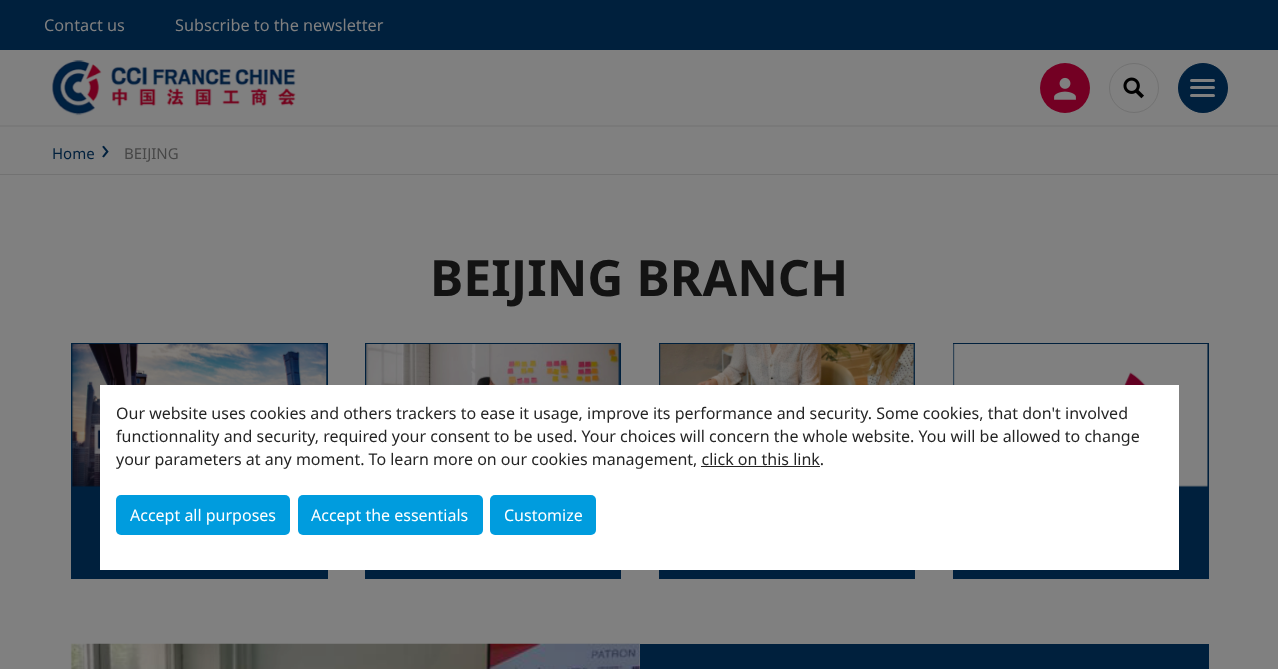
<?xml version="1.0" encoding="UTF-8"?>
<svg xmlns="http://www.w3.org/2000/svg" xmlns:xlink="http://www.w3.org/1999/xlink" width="1278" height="669">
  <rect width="100%" height="100%" fill="#808080" />
  <rect y="125" width="1278" height="2" fill="#797979" />
  <rect width="1278" height="50" fill="#00203d" />
  <image x="52" y="60" width="244" height="56" xlink:href="image1.png" />
  <circle cx="1065" cy="88" r="25" fill="#730023" />
  <image x="1054" y="77" width="22" height="23" xlink:href="image2.png" />
  <circle cx="1134" cy="88" r="24.5" fill="none" stroke="#727272" />
  <image x="1123" y="77" width="21" height="22" xlink:href="image3.png" />
  <circle cx="1203" cy="88" r="24.5" fill="#00203d" stroke="#00203d" />
  <rect x="1190" y="79" width="25" height="3" rx="1.5" fill="#808080" />
  <rect x="1190" y="86" width="25" height="3" rx="1.5" fill="#808080" />
  <rect x="1190" y="94" width="25" height="3" rx="1.5" fill="#808080" />
  <rect y="174" width="1278" height="1" fill="#727272" />
  <rect x="71" y="343" width="257" height="236" fill="#00203d" />
  <image x="72" y="344" width="255" height="143" xlink:href="image4.png" />
  <rect x="365" y="343" width="256" height="236" fill="#00203d" />
  <image x="366" y="344" width="254" height="41" xlink:href="image5.png" />
  <rect x="659" y="343" width="256" height="236" fill="#00203d" />
  <image x="659" y="344" width="256" height="41" xlink:href="image6.png" />
  <rect x="953" y="343" width="256" height="236" fill="#00203d" />
  <image x="953" y="344" width="255" height="143" xlink:href="image7.png" />
  <image x="70" y="643" width="570" height="26" xlink:href="image8.png" />
  <rect x="640" y="644" width="569" height="25" fill="#00203d" />
  <rect x="100" y="385" width="1079" height="185" fill="#ffffff" />
  <rect x="701" y="466" width="119" height="1" fill="#252525" />
  <rect x="116" y="495" width="174" height="40" rx="5" fill="#009cde" />
  <rect x="298" y="495" width="185" height="40" rx="5" fill="#009cde" />
  <rect x="490" y="495" width="106" height="40" rx="5" fill="#009cde" />
  <text x="44" y="31" style="font-family: Noto Sans; font-size: 16.25px; fill: #808080">Contact us</text>
  <text x="175" y="31" style="font-family: Noto Sans; font-size: 16.25px; fill: #808080">Subscribe to the newsletter</text>
  <text x="52" y="159" style="font-family: Noto Sans; font-size: 15px; fill: #00203d">Home</text>
  <text x="101" y="159" style="font-family: Noto Sans; font-size: 28px; fill: #00203d">›</text>
  <text x="124" y="159" style="font-family: Noto Sans; font-size: 15px; fill: #474747">BEIJING</text>
  <text x="430" y="296" style="font-family: Noto Sans; font-size: 50px; font-weight: bold; fill: #131313">BEIJING BRANCH</text>
  <text x="116" y="419" style="font-family: Noto Sans; font-size: 16px; fill: #252525">Our website uses cookies and others trackers to ease it usage, improve its performance and security. Some cookies, that don't involved</text>
  <text x="116" y="442" style="font-family: Noto Sans; font-size: 16px; fill: #252525">functionnality and security, required your consent to be used. Your choices will concern the whole website. You will be allowed to change</text>
  <text x="116" y="465" style="font-family: Noto Sans; font-size: 16px; fill: #252525">your parameters at any moment. To learn more on our cookies management, click on this link.</text>
  <text x="130" y="521" style="font-family: Noto Sans; font-size: 16px; fill: #ffffff">Accept all purposes</text>
  <text x="311" y="521" style="font-family: Noto Sans; font-size: 16px; fill: #ffffff">Accept the essentials</text>
  <text x="504" y="521" style="font-family: Noto Sans; font-size: 16px; fill: #ffffff">Customize</text>
</svg>
